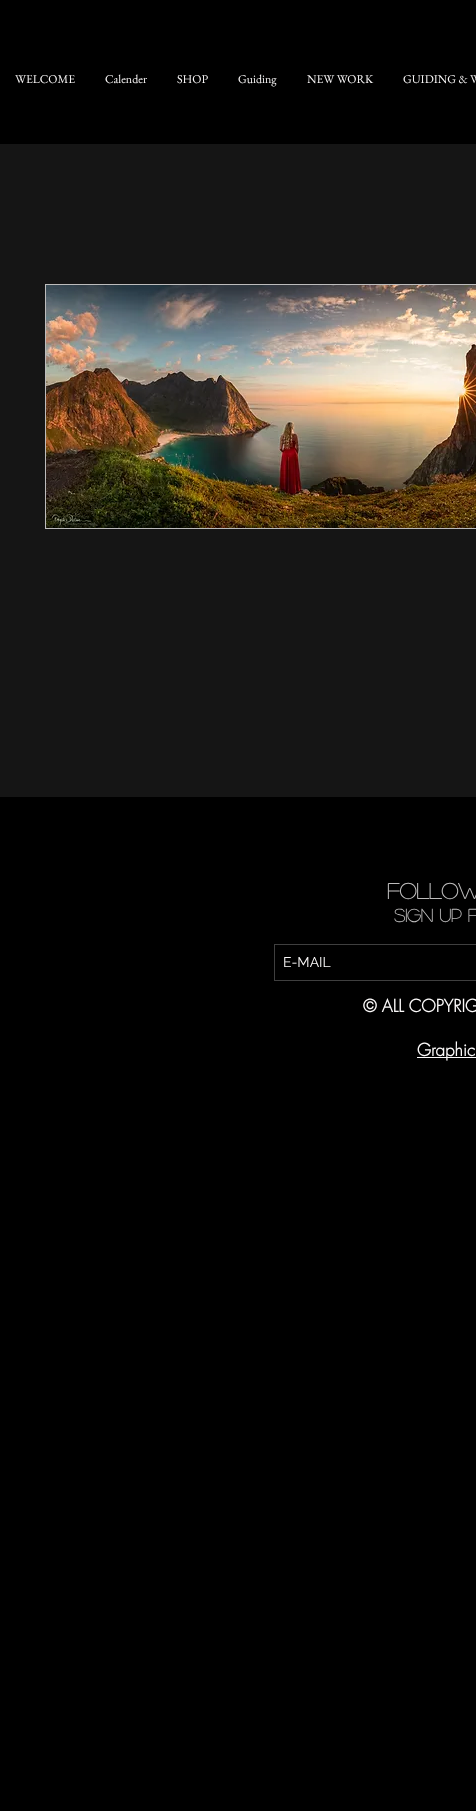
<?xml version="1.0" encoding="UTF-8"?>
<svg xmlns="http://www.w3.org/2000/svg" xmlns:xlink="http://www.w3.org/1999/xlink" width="476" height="1811">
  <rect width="100%" height="100%" fill="#000000" />
  <rect y="144" width="476" height="653" fill="#151515" />
  <rect x="45.5" y="284.5" width="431" height="244" fill="none" stroke="#bdbcbc" />
  <image x="46" y="285" width="430" height="243" xlink:href="image1.png" />
  <rect x="274.5" y="944.5" width="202" height="36" fill="none" stroke="#3f3f3f" />
  <rect x="417" y="1057" width="59" height="1" fill="#fcfafa" />
  <text x="15" y="83" style="font-family: EB Garamond; font-size: 12px; fill: #fcfafa">WELCOME</text>
  <text x="105" y="83" style="font-family: EB Garamond; font-size: 12px; fill: #fcfafa">Calender</text>
  <text x="177" y="83" style="font-family: EB Garamond; font-size: 12px; fill: #fcfafa">SHOP</text>
  <text x="238" y="83" style="font-family: EB Garamond; font-size: 12px; fill: #fcfafa">Guiding</text>
  <text x="307" y="83" style="font-family: EB Garamond; font-size: 12px; fill: #fcfafa">NEW WORK</text>
  <text x="403" y="83" style="font-family: EB Garamond; font-size: 12px; fill: #fcfafa">GUIDING &amp; W</text>
  <text x="387" y="899" style="font-family: 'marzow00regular'; font-size: 22px; font-weight: bold; fill: #bdbcbc">FOLLOW</text>
  <text x="394" y="922" style="font-family: 'marzow00regular'; font-size: 18px; font-weight: bold; fill: #bdbcbc">Sign up f</text>
  <text x="283" y="967" style="font-family: Raleway; font-size: 14px; fill: #fcfafa">E-MAIL</text>
  <text x="363" y="1012" style="font-family: futura; font-size: 17px; font-weight: bold; fill: #fcfafa">© ALL COPYRIG</text>
  <text x="417" y="1056" style="font-family: futura; font-size: 17px; font-weight: bold; fill: #fcfafa">Graphic</text>
</svg>
